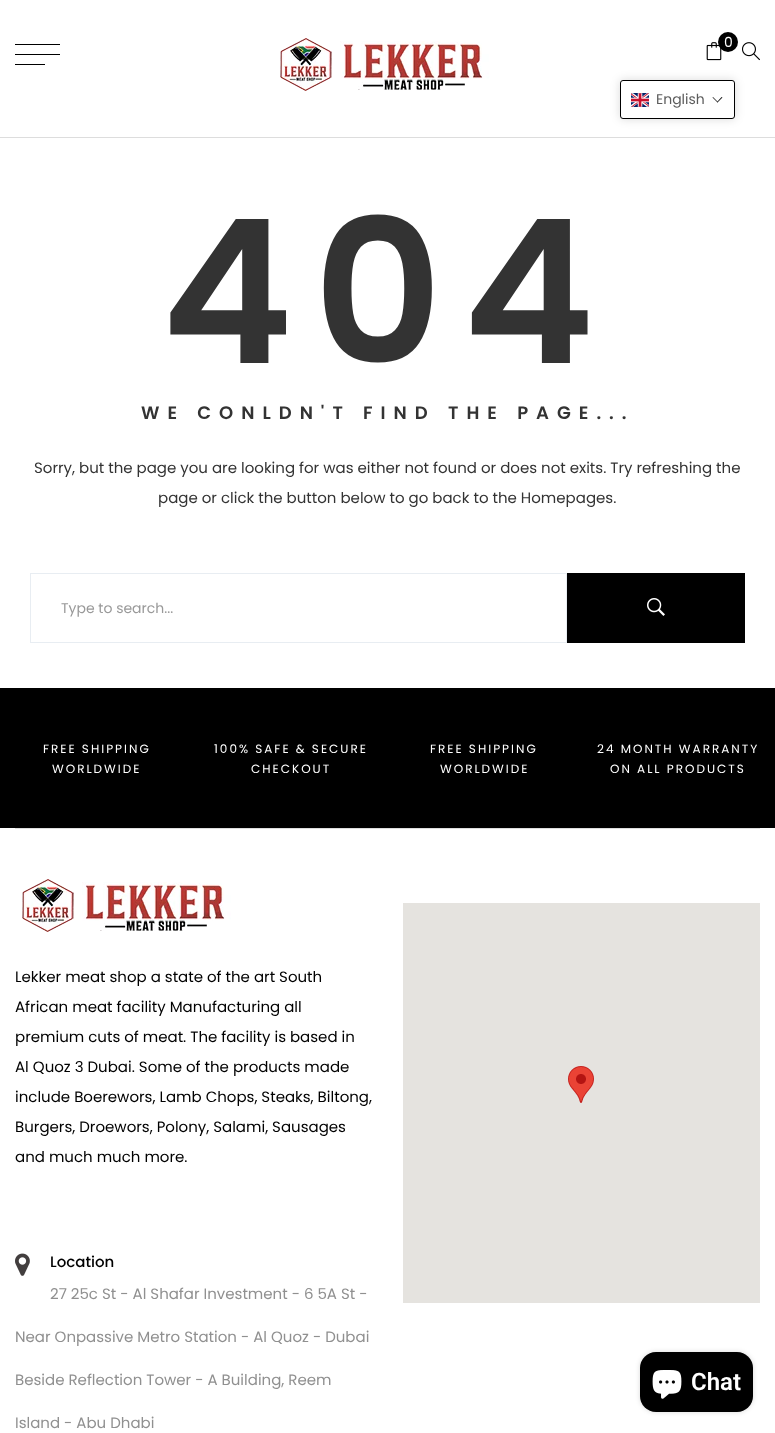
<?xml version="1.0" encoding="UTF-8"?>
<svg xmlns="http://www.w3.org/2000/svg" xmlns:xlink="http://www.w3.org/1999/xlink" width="775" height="1433">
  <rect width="100%" height="100%" fill="#ffffff" />
  <rect y="137" width="775" height="1" fill="#dddddd" />
  <rect x="15" y="44" width="45" height="1" fill="#000000" />
  <rect x="15" y="54" width="45" height="1" fill="#000000" />
  <rect x="15" y="64" width="30" height="1" fill="#000000" />
  <image x="280" y="38" width="209" height="53" xlink:href="image1.png" />
  <image x="706" y="42" width="16" height="19" xlink:href="image2.png" />
  <circle cx="728" cy="42" r="10" fill="#000000" />
  <image x="742" y="42" width="18" height="19" xlink:href="image3.png" />
  <rect x="620" y="80" width="115" height="39" rx="3" fill="#000000" fill-opacity="0.15" filter="blur(5px)" />
  <rect x="620.5" y="80.5" width="114" height="38" rx="2.5" fill="#ffffff" stroke="#000000" />
  <image x="631" y="93" width="18" height="14" xlink:href="image4.png" />
  <path d="M 721.5 97 l 1 0.5 l -5 5 l -0.5 -0.5 z" fill="#1a1a1a" />
  <path d="M 713 97 l 5 5 l -0.5 0.5 l -5 -5 z" fill="#1a1a1a" />
  <rect x="30.5" y="573.5" width="536" height="69" fill="none" stroke="#e8edf2" />
  <rect x="567" y="573" width="178" height="70" fill="#000000" />
  <image x="647" y="598" width="18" height="18" xlink:href="image5.png" />
  <rect y="688" width="775" height="140" fill="#000000" />
  <rect x="15" y="828" width="745" height="1" fill="#dddddd" />
  <image x="22" y="879" width="209" height="53" xlink:href="image1.png" />
  <image x="15" y="1253" width="15" height="23" xlink:href="image6.png" />
  <rect x="403" y="903" width="357" height="400" fill="#e5e3df" />
  <image x="568" y="1066" width="26" height="37" xlink:href="image7.png" />
  <rect x="640" y="1352" width="113" height="60" rx="16" fill="#000000" fill-opacity="0.15" filter="blur(2.5px)" />
  <rect x="640" y="1352" width="113" height="60" rx="16" fill="#000000" />
  <image x="652" y="1370" width="30" height="29" xlink:href="image8.png" />
  <text x="724" y="47" style="font-family: Poppins; font-size: 14px; fill: #ffffff">0</text>
  <text x="656" y="104" style="font-family: Poppins; font-size: 14px; fill: #5c5c5c">English</text>
  <text x="161" y="363" style="font-family: Poppins; font-size: 200px; font-weight: 600; letter-spacing: 20px; fill: #333333">404</text>
  <text x="141" y="419" style="font-family: Poppins; font-size: 18px; font-weight: 600; letter-spacing: 8px; fill: #333333">WE CONLDN'T FIND THE PAGE...</text>
  <text x="34" y="473" style="font-family: Poppins; font-size: 15px; fill: #333333">Sorry, but the page you are looking for was either not found or does not exits. Try refreshing the</text>
  <text x="158" y="503" style="font-family: Poppins; font-size: 15px; fill: #333333">page or click the button below to go back to the Homepages.</text>
  <text x="61" y="613" style="font-family: Poppins; font-size: 14px; fill: #999999">Type to search...</text>
  <text x="43" y="753" style="font-family: Poppins; font-size: 12px; letter-spacing: 2px; fill: #ffffff">FREE SHIPPING</text>
  <text x="52" y="773" style="font-family: Poppins; font-size: 12px; letter-spacing: 2px; fill: #ffffff">WORLDWIDE</text>
  <text x="214" y="753" style="font-family: Poppins; font-size: 12px; letter-spacing: 2px; fill: #ffffff">100% SAFE &amp; SECURE</text>
  <text x="251" y="773" style="font-family: Poppins; font-size: 12px; letter-spacing: 2px; fill: #ffffff">CHECKOUT</text>
  <text x="430" y="753" style="font-family: Poppins; font-size: 12px; letter-spacing: 2px; fill: #ffffff">FREE SHIPPING</text>
  <text x="440" y="773" style="font-family: Poppins; font-size: 12px; letter-spacing: 2px; fill: #ffffff">WORLDWIDE</text>
  <text x="597" y="753" style="font-family: Poppins; font-size: 12px; letter-spacing: 2px; fill: #ffffff">24 MONTH WARRANTY</text>
  <text x="610" y="773" style="font-family: Poppins; font-size: 12px; letter-spacing: 2px; fill: #ffffff">ON ALL PRODUCTS</text>
  <text x="15" y="982" style="font-family: Poppins; font-size: 15px; fill: #000000">Lekker meat shop a state of the art South</text>
  <text x="15" y="1012" style="font-family: Poppins; font-size: 15px; fill: #000000">African meat facility Manufacturing all</text>
  <text x="15" y="1042" style="font-family: Poppins; font-size: 15px; fill: #000000">premium cuts of meat. The facility is based in</text>
  <text x="15" y="1072" style="font-family: Poppins; font-size: 15px; fill: #000000">Al Quoz 3 Dubai. Some of the products made</text>
  <text x="15" y="1102" style="font-family: Poppins; font-size: 15px; fill: #000000">include Boerewors, Lamb Chops, Steaks, Biltong,</text>
  <text x="15" y="1132" style="font-family: Poppins; font-size: 15px; fill: #000000">Burgers, Droewors, Polony, Salami, Sausages</text>
  <text x="15" y="1162" style="font-family: Poppins; font-size: 15px; fill: #000000">and much much more.</text>
  <text x="50" y="1267" style="font-family: Poppins; font-size: 15px; font-weight: 500; fill: #000000">Location</text>
  <text x="50" y="1299" style="font-family: Poppins; font-size: 15px; fill: #909090">27 25c St - Al Shafar Investment - 6 5A St -</text>
  <text x="15" y="1342" style="font-family: Poppins; font-size: 15px; fill: #909090">Near Onpassive Metro Station - Al Quoz - Dubai</text>
  <text x="15" y="1385" style="font-family: Poppins; font-size: 15px; fill: #909090">Beside Reflection Tower - A Building, Reem</text>
  <text x="15" y="1428" style="font-family: Poppins; font-size: 15px; fill: #909090">Island - Abu Dhabi</text>
  <text x="691" y="1390" style="font-family: Roboto; font-size: 24px; font-weight: 600; fill: #ffffff">Chat</text>
</svg>
